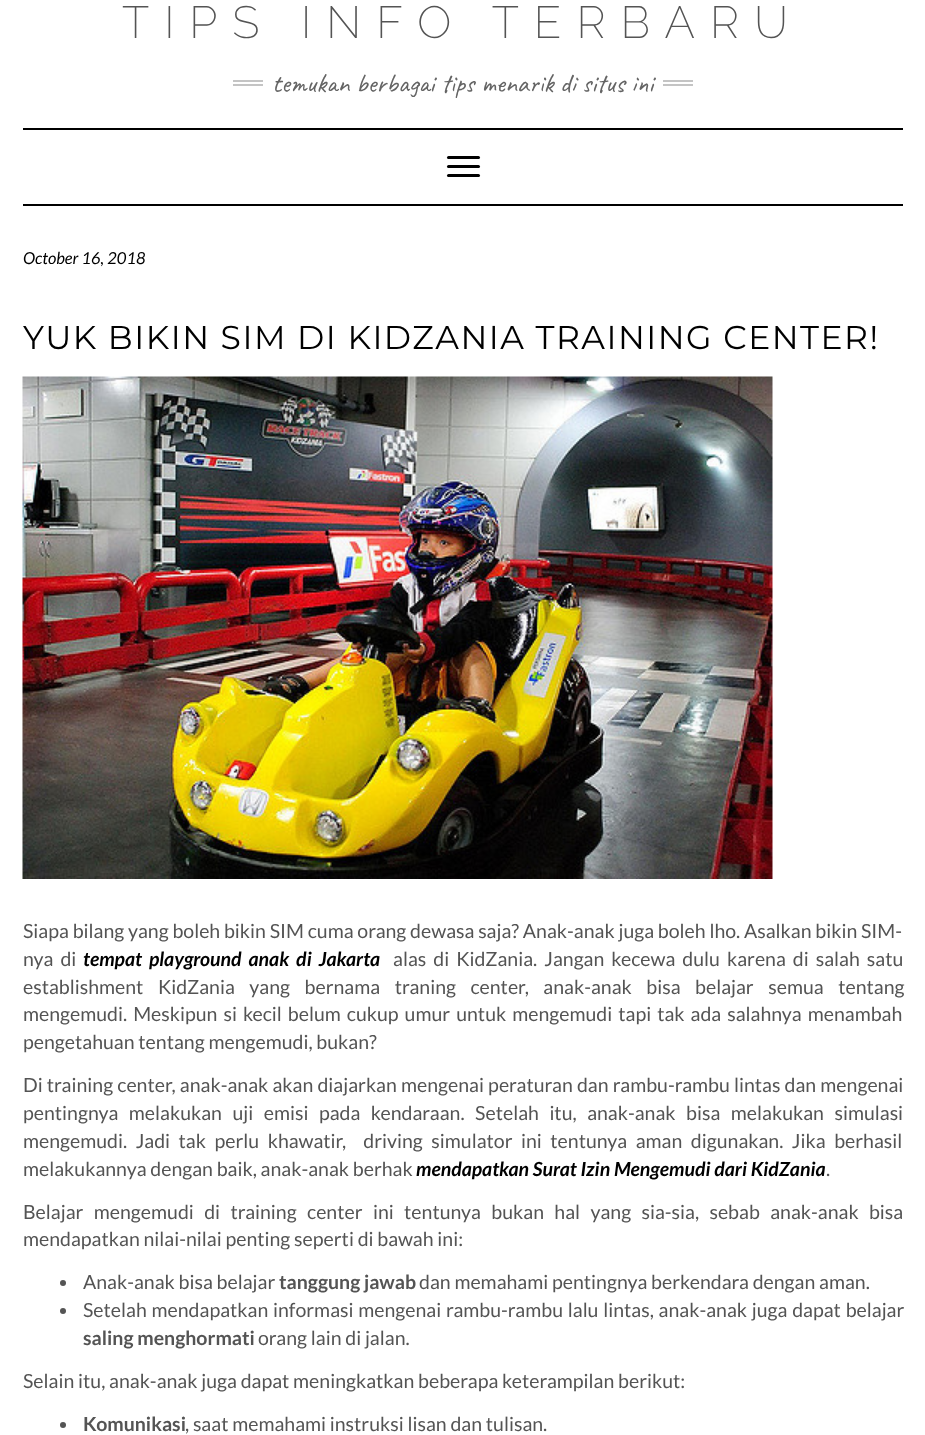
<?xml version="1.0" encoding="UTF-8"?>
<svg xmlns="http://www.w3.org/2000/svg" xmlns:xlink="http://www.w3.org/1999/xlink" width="925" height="1435">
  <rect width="100%" height="100%" fill="#ffffff" />
  <rect x="233" y="80" width="30" height="2" fill="#c4c4c4" />
  <rect x="233" y="84" width="30" height="2" fill="#c4c4c4" />
  <rect x="663" y="80" width="30" height="2" fill="#c4c4c4" />
  <rect x="663" y="84" width="30" height="2" fill="#c4c4c4" />
  <rect x="23" y="128" width="880" height="2" fill="#000000" />
  <rect x="23" y="204" width="880" height="2" fill="#000000" />
  <rect x="447" y="156" width="33" height="3" rx="1.5" fill="#000000" />
  <rect x="447" y="165" width="33" height="3" rx="1.5" fill="#000000" />
  <rect x="447" y="174" width="33" height="3" rx="1.5" fill="#000000" />
  <image x="22" y="376" width="751" height="503" xlink:href="image1.png" />
  <circle cx="63" cy="1283" r="3" fill="#545454" />
  <circle cx="63" cy="1311" r="3" fill="#545454" />
  <circle cx="63" cy="1425" r="3" fill="#545454" />
  <text x="122" y="38" style="font-family: Raleway; font-size: 45px; font-weight: 100; letter-spacing: 15px; fill: #545454">TIPS INFO TERBARU</text>
  <text x="272" y="92" style="font-family: Caveat; font-size: 27px; fill: #646464">temukan berbagai tips menarik di situs ini</text>
  <text x="23" y="264" style="font-family: Lato; font-size: 16.5px; font-style: italic; fill: #000000">October 16, 2018</text>
  <text x="23" y="349" style="font-family: Montserrat; font-size: 33px; letter-spacing: 1.5px; fill: #000000">YUK BIKIN SIM DI KIDZANIA TRAINING CENTER!</text>
  <text x="23" y="938" style="font-family: Lato; font-size: 19.5px; fill: #545454">Siapa bilang yang boleh bikin SIM cuma orang dewasa saja? Anak-anak juga boleh lho. Asalkan bikin SIM-</text>
  <text x="23" y="966" word-spacing="3.25" style="font-family: Lato; font-size: 19.5px; fill: #545454">nya di</text>
  <text x="83" y="966" word-spacing="3.25" style="font-family: Lato; font-size: 19.5px; font-weight: bold; font-style: italic; fill: #000000">tempat playground anak di Jakarta</text>
  <text x="393" y="966" word-spacing="3.25" style="font-family: Lato; font-size: 19.5px; fill: #545454">alas di KidZania. Jangan kecewa dulu karena di salah satu</text>
  <text x="23" y="994" word-spacing="10.75" style="font-family: Lato; font-size: 19.5px; fill: #545454">establishment KidZania yang bernama traning center, anak-anak bisa belajar semua tentang</text>
  <text x="23" y="1021" word-spacing="2.25" style="font-family: Lato; font-size: 19.5px; fill: #545454">mengemudi. Meskipun si kecil belum cukup umur untuk mengemudi tapi tak ada salahnya menambah</text>
  <text x="23" y="1049" style="font-family: Lato; font-size: 19.5px; fill: #545454">pengetahuan tentang mengemudi, bukan?</text>
  <text x="23" y="1092" word-spacing="0.4" style="font-family: Lato; font-size: 19.5px; fill: #545454">Di training center, anak-anak akan diajarkan mengenai peraturan dan rambu-rambu lintas dan mengenai</text>
  <text x="23" y="1120" word-spacing="6.75" style="font-family: Lato; font-size: 19.5px; fill: #545454">pentingnya melakukan uji emisi pada kendaraan. Setelah itu, anak-anak bisa melakukan simulasi</text>
  <text x="23" y="1148" word-spacing="4.75" style="font-family: Lato; font-size: 19.5px; fill: #545454" xml:space="preserve">mengemudi. Jadi tak perlu khawatir,  driving simulator ini tentunya aman digunakan. Jika berhasil</text>
  <text x="23" y="1176" style="font-family: Lato; font-size: 19.5px; fill: #545454">melakukannya dengan baik, anak-anak berhak</text>
  <text x="416" y="1176" style="font-family: Lato; font-size: 19.5px; font-weight: bold; font-style: italic; fill: #000000">mendapatkan Surat Izin Mengemudi dari KidZania</text>
  <text x="826" y="1176" style="font-family: Lato; font-size: 19.5px; fill: #545454">.</text>
  <text x="23" y="1219" word-spacing="6.6" style="font-family: Lato; font-size: 19.5px; fill: #545454">Belajar mengemudi di training center ini tentunya bukan hal yang sia-sia, sebab anak-anak bisa</text>
  <text x="23" y="1246" style="font-family: Lato; font-size: 19.5px; fill: #545454">mendapatkan nilai-nilai penting seperti di bawah ini:</text>
  <text x="83" y="1289" style="font-family: Lato; font-size: 19.5px; fill: #545454">Anak-anak bisa belajar</text>
  <text x="279" y="1289" style="font-family: Lato; font-size: 19.5px; font-weight: bold; fill: #545454">tanggung jawab</text>
  <text x="419" y="1289" style="font-family: Lato; font-size: 19.5px; fill: #545454">dan memahami pentingnya berkendara dengan aman.</text>
  <text x="83" y="1317" word-spacing="1" style="font-family: Lato; font-size: 19.5px; fill: #545454">Setelah mendapatkan informasi mengenai rambu-rambu lalu lintas, anak-anak juga dapat belajar</text>
  <text x="83" y="1345" style="font-family: Lato; font-size: 19.5px; font-weight: bold; fill: #545454">saling menghormati</text>
  <text x="258" y="1345" style="font-family: Lato; font-size: 19.5px; fill: #545454">orang lain di jalan.</text>
  <text x="23" y="1388" style="font-family: Lato; font-size: 19.5px; fill: #545454">Selain itu, anak-anak juga dapat meningkatkan beberapa keterampilan berikut:</text>
  <text x="83" y="1431" style="font-family: Lato; font-size: 19.5px; font-weight: bold; fill: #545454">Komunikasi</text>
  <text x="185" y="1431" style="font-family: Lato; font-size: 19.5px; fill: #545454">, saat memahami instruksi lisan dan tulisan.</text>
</svg>
